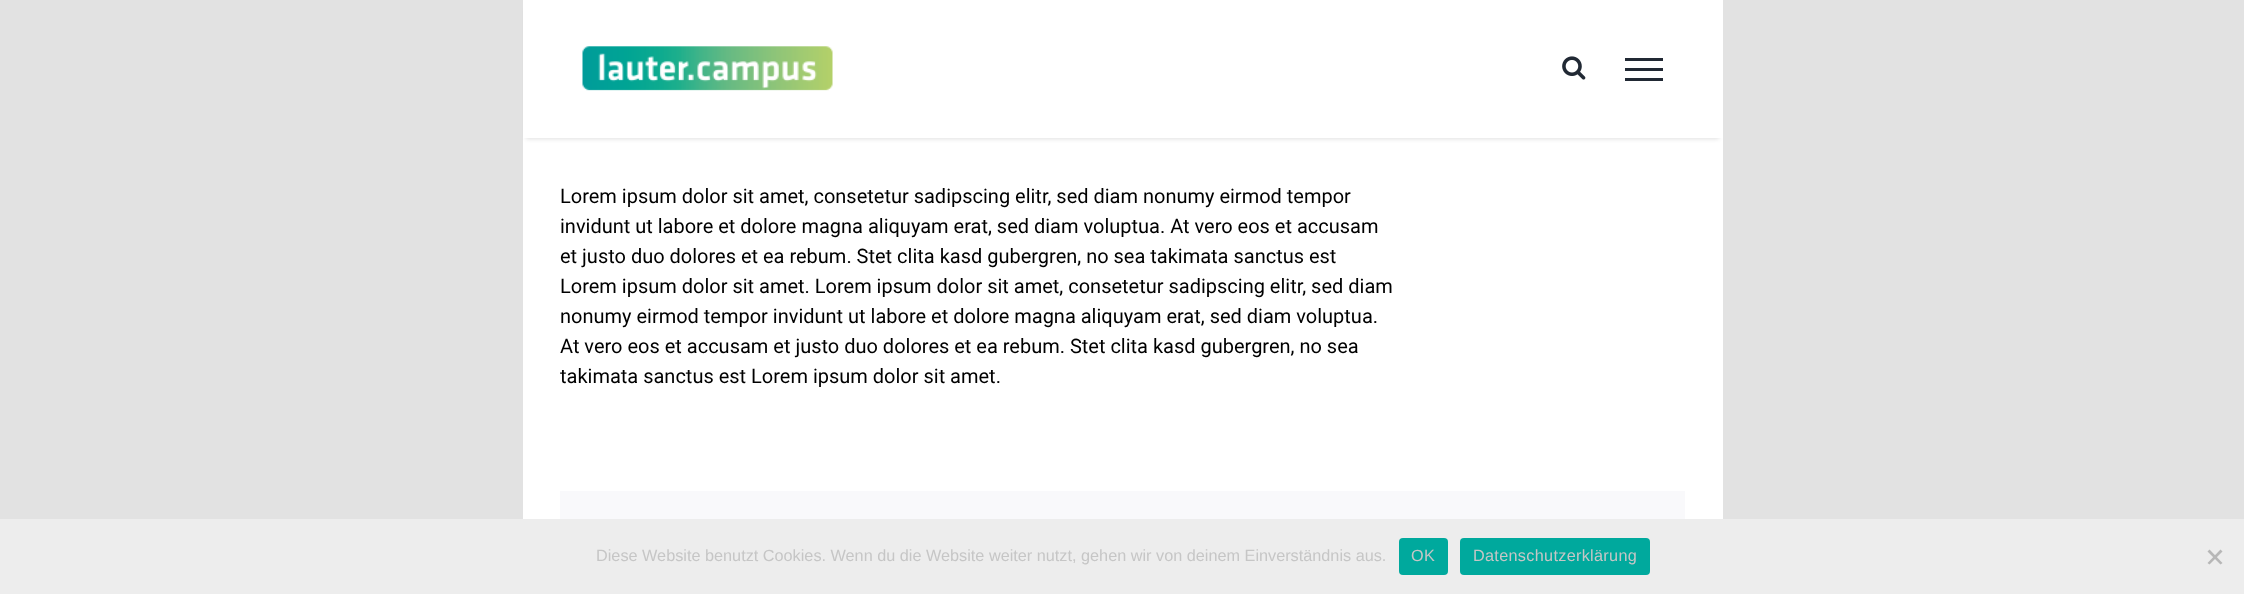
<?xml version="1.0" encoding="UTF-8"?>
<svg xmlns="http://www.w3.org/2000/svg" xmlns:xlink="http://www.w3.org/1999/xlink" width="2244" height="594">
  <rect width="100%" height="100%" fill="#e2e2e2" />
  <rect x="523" y="138" width="1200" height="381" fill="#ffffff" />
  <rect x="526" y="9" width="1193" height="130" fill="#000000" fill-opacity="0.12" filter="blur(2px)" />
  <rect x="523" width="1200" height="138" fill="#ffffff" />
  <image x="582" y="46" width="251" height="45" xlink:href="image1.png" />
  <image x="1562" y="56" width="24" height="24" xlink:href="image2.png" />
  <rect x="1625" y="58" width="38" height="3" fill="#212934" />
  <rect x="1625" y="68" width="38" height="3" fill="#212934" />
  <rect x="1625" y="78" width="38" height="3" fill="#212934" />
  <rect x="560" y="491" width="1125" height="28" fill="#f9f9fb" />
  <rect y="519" width="2244" height="75" fill="#ededed" />
  <rect x="1399" y="538" width="49" height="37" rx="4" fill="#00a99d" />
  <rect x="1460" y="538" width="190" height="37" rx="4" fill="#00a99d" />
  <path d="M 2220.5 549.5 l 2 2 l -13 13 l -2 -1.5 z" fill="#b7b7b7" />
  <path d="M 2207.5 551.5 l 2 -2 l 13 13.5 l -2 1.5 z" fill="#b7b7b7" />
  <text x="560" y="203" style="font-family: Roboto; font-size: 20px; fill: #000000">Lorem ipsum dolor sit amet, consetetur sadipscing elitr, sed diam nonumy eirmod tempor</text>
  <text x="560" y="233" style="font-family: Roboto; font-size: 20px; fill: #000000">invidunt ut labore et dolore magna aliquyam erat, sed diam voluptua. At vero eos et accusam</text>
  <text x="560" y="263" style="font-family: Roboto; font-size: 20px; fill: #000000">et justo duo dolores et ea rebum. Stet clita kasd gubergren, no sea takimata sanctus est</text>
  <text x="560" y="293" style="font-family: Roboto; font-size: 20px; fill: #000000">Lorem ipsum dolor sit amet. Lorem ipsum dolor sit amet, consetetur sadipscing elitr, sed diam</text>
  <text x="560" y="323" style="font-family: Roboto; font-size: 20px; fill: #000000">nonumy eirmod tempor invidunt ut labore et dolore magna aliquyam erat, sed diam voluptua.</text>
  <text x="560" y="353" style="font-family: Roboto; font-size: 20px; fill: #000000">At vero eos et accusam et justo duo dolores et ea rebum. Stet clita kasd gubergren, no sea</text>
  <text x="560" y="383" style="font-family: Roboto; font-size: 20px; fill: #000000">takimata sanctus est Lorem ipsum dolor sit amet.</text>
  <text x="596" y="561" style="font-family: Liberation Sans; font-size: 16.25px; fill: #c6c6c6">Diese Website benutzt Cookies. Wenn du die Website weiter nutzt, gehen wir von deinem Einverständnis aus.</text>
  <text x="1411" y="561" style="font-family: Liberation Sans; font-size: 16.25px; letter-spacing: 0.3px; fill: #c6c6c6">OK</text>
  <text x="1473" y="561" style="font-family: Liberation Sans; font-size: 16.25px; letter-spacing: 0.3px; fill: #c6c6c6">Datenschutzerklärung</text>
</svg>
